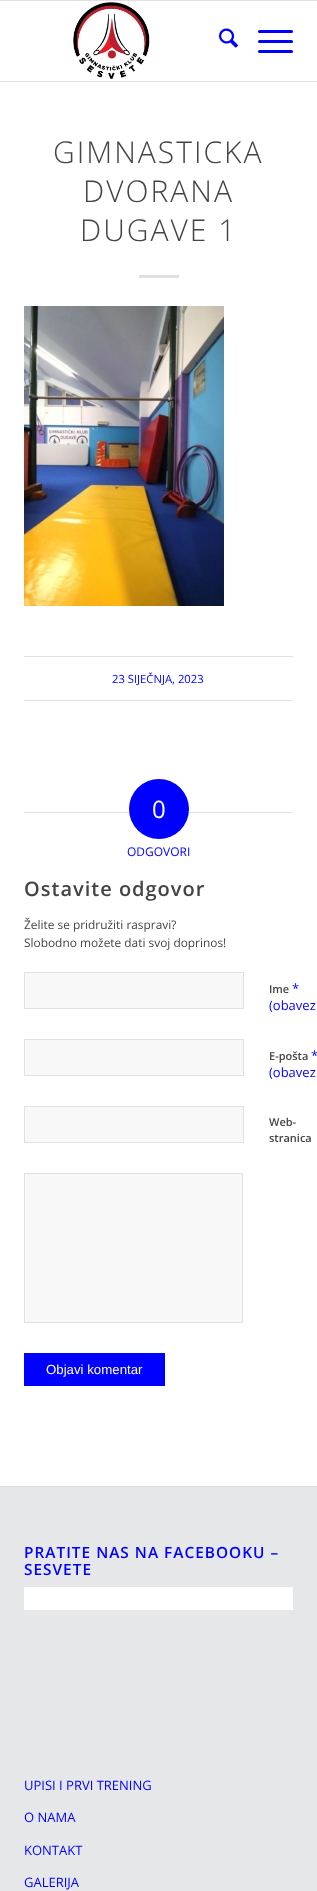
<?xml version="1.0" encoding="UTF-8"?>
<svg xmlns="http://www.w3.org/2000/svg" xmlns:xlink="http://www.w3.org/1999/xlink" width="317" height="1891">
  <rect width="100%" height="100%" fill="#ffffff" />
  <rect width="317" height="1" fill="#e1e1e1" />
  <rect y="81" width="317" height="1" fill="#e1e1e1" />
  <image x="73" y="2" width="77" height="77" xlink:href="image1.png" />
  <image x="219" y="28" width="19" height="20" xlink:href="image2.png" />
  <rect x="258" y="40" width="35" height="3" rx="1.5" fill="#0000ff" />
  <rect x="258" y="30" width="35" height="3" rx="1.5" fill="#0000ff" />
  <rect x="258" y="50" width="35" height="3" rx="1.5" fill="#0000ff" />
  <rect x="139" y="275" width="40" height="3" fill="#e1e1e1" />
  <image x="24" y="306" width="200" height="300" xlink:href="image3.png" />
  <rect x="24" y="656" width="269" height="1" fill="#e1e1e1" />
  <rect x="24" y="700" width="269" height="1" fill="#e1e1e1" />
  <rect x="24" y="812" width="113" height="1" fill="#e1e1e1" />
  <rect x="180" y="812" width="113" height="1" fill="#e1e1e1" />
  <circle cx="159" cy="809" r="30" fill="#0000ff" />
  <rect x="24.5" y="972.5" width="219" height="36" fill="#f8f8f8" stroke="#e1e1e1" />
  <rect x="24.5" y="1039.5" width="219" height="36" fill="#f8f8f8" stroke="#e1e1e1" />
  <rect x="24.5" y="1106.5" width="219" height="36" fill="#f8f8f8" stroke="#e1e1e1" />
  <rect x="24.5" y="1173.5" width="218" height="149" fill="#f8f8f8" stroke="#e1e1e1" />
  <rect x="24" y="1353" width="141" height="33" fill="#0000ff" />
  <rect y="1487" width="317" height="404" fill="#e5e7e9" />
  <rect y="1486" width="317" height="1" fill="#e1e1e1" />
  <rect x="24" y="1587" width="269" height="23" fill="#ffffff" />
  <text x="53" y="163" style="font-family: Open Sans; font-size: 30px; font-weight: 300; letter-spacing: 2px; fill: #444444">GIMNASTICKA</text>
  <text x="83" y="202" style="font-family: Open Sans; font-size: 30px; font-weight: 300; letter-spacing: 2px; fill: #444444">DVORANA</text>
  <text x="80" y="241" style="font-family: Open Sans; font-size: 30px; font-weight: 300; letter-spacing: 2px; fill: #444444">DUGAVE 1</text>
  <text x="112" y="683" style="font-family: Open Sans; font-size: 11.25px; fill: #0000ff">23 SIJEČNJA, 2023</text>
  <text x="152" y="818" style="font-family: Open Sans; font-size: 24px; fill: #ffffff">0</text>
  <text x="127" y="856" style="font-family: Open Sans; font-size: 12px; fill: #0000ff">ODGOVORI</text>
  <text x="24" y="896" style="font-family: Open Sans; font-size: 20px; font-weight: 600; letter-spacing: 1px; fill: #444444">Ostavite odgovor</text>
  <text x="24" y="929" style="font-family: Open Sans; font-size: 11.9px; fill: #444444">Želite se pridružiti raspravi?</text>
  <text x="24" y="947" style="font-family: Open Sans; font-size: 11.9px; fill: #444444">Slobodno možete dati svoj doprinos!</text>
  <text x="269" y="993" style="font-family: Open Sans; font-size: 11px; font-weight: 600; fill: #444444">Ime</text>
  <text x="292" y="993" style="font-family: Open Sans; font-size: 13px; fill: #0000ff">*</text>
  <text x="269" y="1010" style="font-family: Open Sans; font-size: 13px; fill: #0000ff">(obavez</text>
  <text x="269" y="1060" style="font-family: Open Sans; font-size: 11px; font-weight: 600; fill: #444444">E-pošta</text>
  <text x="311" y="1060" style="font-family: Open Sans; font-size: 13px; fill: #0000ff">*</text>
  <text x="269" y="1077" style="font-family: Open Sans; font-size: 13px; fill: #0000ff">(obavez</text>
  <text x="269" y="1126" style="font-family: Open Sans; font-size: 11px; font-weight: 600; fill: #444444">Web-</text>
  <text x="269" y="1142" style="font-family: Open Sans; font-size: 11px; font-weight: 600; fill: #444444">stranica</text>
  <text x="46" y="1374" style="font-family: Liberation Sans; font-size: 13.25px; fill: #ffffff">Objavi komentar</text>
  <text x="24" y="1558" style="font-family: Open Sans; font-size: 15.4px; font-weight: 600; letter-spacing: 1px; fill: #0000ff">PRATITE NAS NA FACEBOOKU –</text>
  <text x="24" y="1575" style="font-family: Open Sans; font-size: 15.4px; font-weight: 600; letter-spacing: 1px; fill: #0000ff">SESVETE</text>
  <text x="24" y="1790" style="font-family: Open Sans; font-size: 13px; fill: #0000ff">UPISI I PRVI TRENING</text>
  <text x="24" y="1822" style="font-family: Open Sans; font-size: 13px; fill: #0000ff">O NAMA</text>
  <text x="24" y="1855" style="font-family: Open Sans; font-size: 13px; fill: #0000ff">KONTAKT</text>
  <text x="24" y="1887" style="font-family: Open Sans; font-size: 13px; fill: #0000ff">GALERIJA</text>
</svg>
